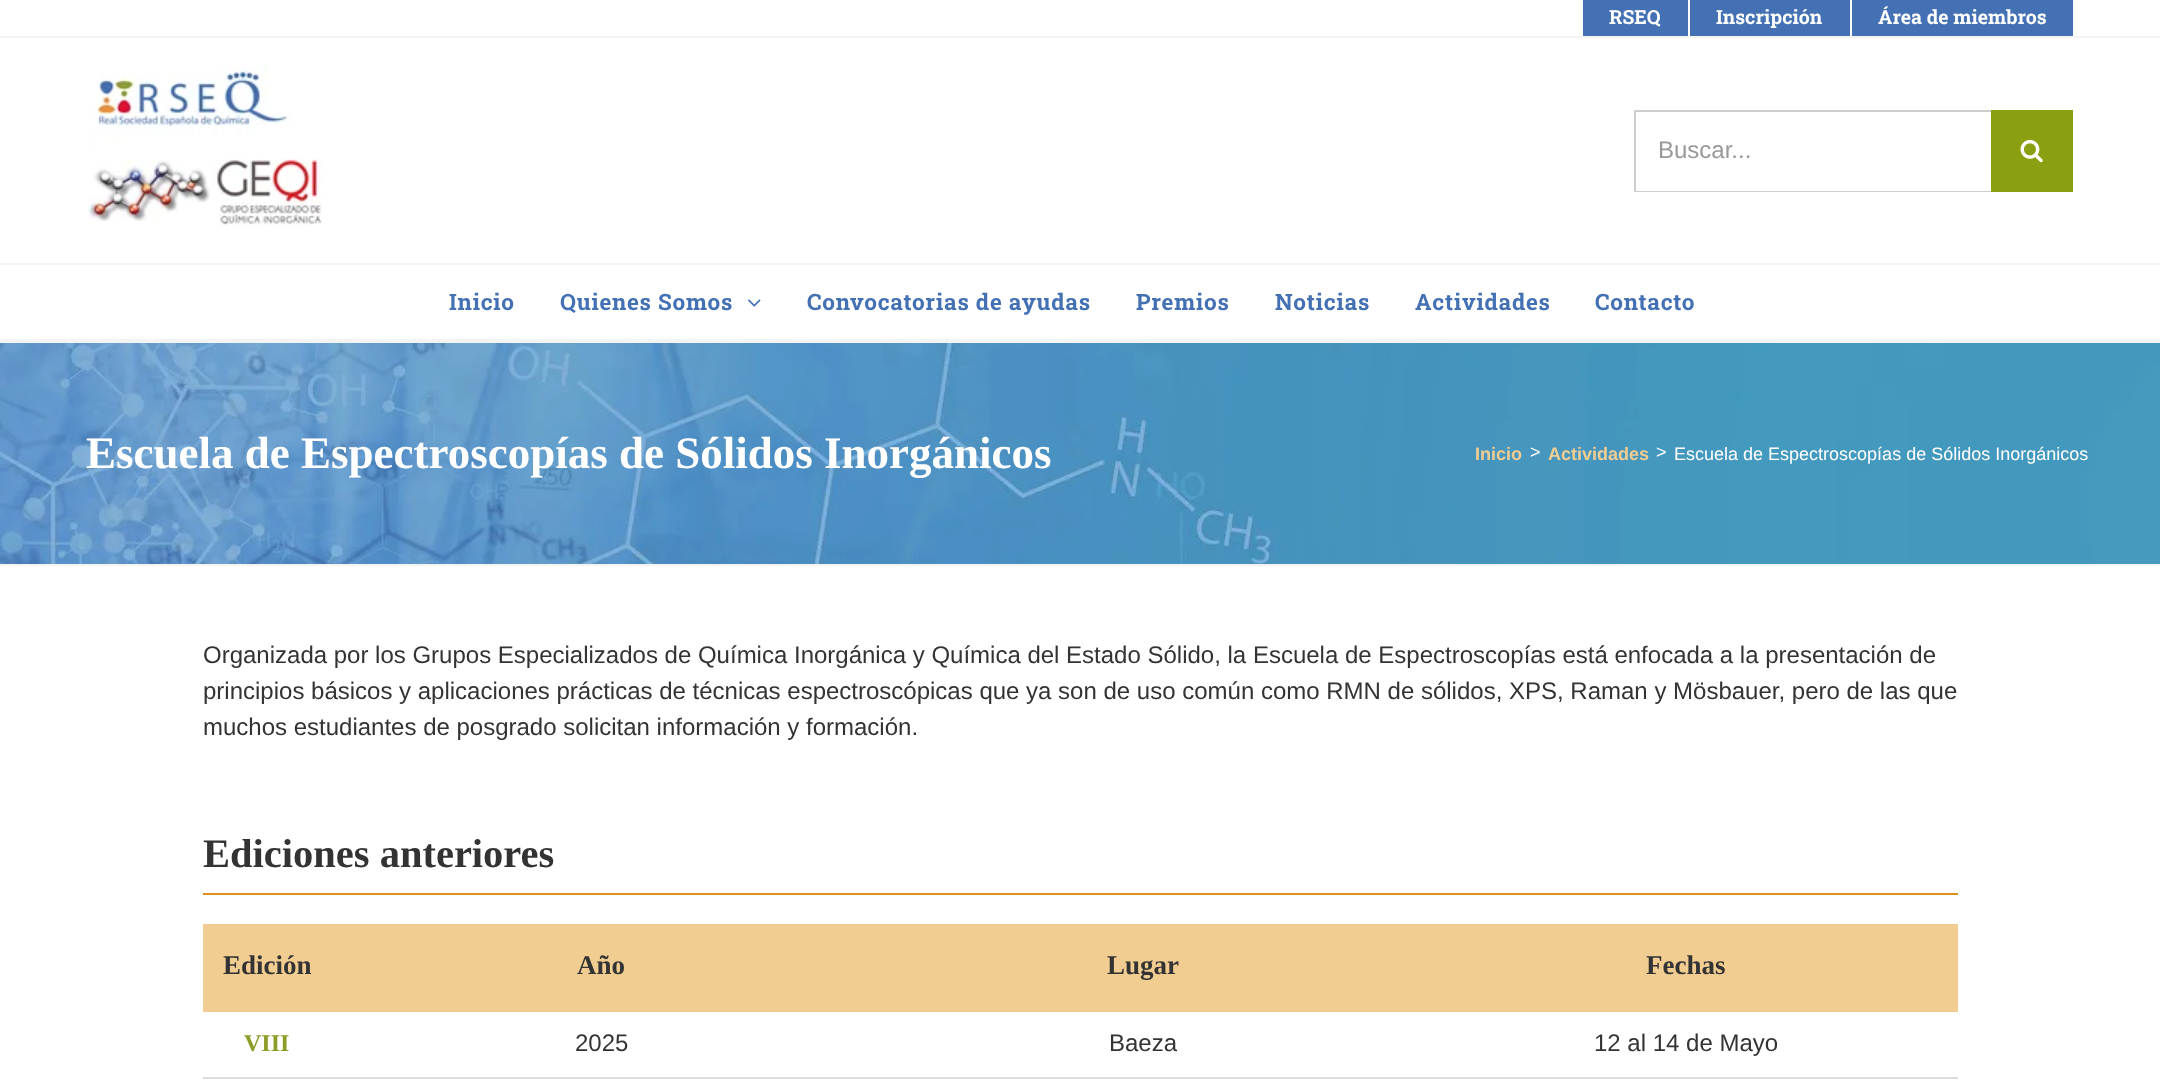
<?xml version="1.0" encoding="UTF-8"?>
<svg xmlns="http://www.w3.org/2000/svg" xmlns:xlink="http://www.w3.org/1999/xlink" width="2160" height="1090">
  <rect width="100%" height="100%" fill="#ffffff" />
  <rect y="36" width="2160" height="2" fill="#f4f4f4" />
  <rect x="1583" width="490" height="36" fill="#4470b4" />
  <rect x="1688" width="2" height="36" fill="#ffffff" />
  <rect x="1850" width="2" height="36" fill="#ffffff" />
  <rect y="263" width="2160" height="2" fill="#f4f4f4" />
  <image x="87" y="64" width="235" height="162" xlink:href="image1.png" />
  <rect x="1634" y="110" width="357" height="2" fill="#cecece" />
  <rect x="1634" y="191" width="357" height="1" fill="#cecece" />
  <rect x="1634" y="110" width="2" height="82" fill="#cecece" />
  <rect x="1991" y="110" width="82" height="82" fill="#8c9f11" />
  <image x="2020" y="139" width="23" height="24" xlink:href="image2.png" />
  <image x="748" y="299" width="13" height="8" xlink:href="image3.png" />
  <image x="0" y="343" width="2160" height="221" xlink:href="image4.png" />
  <rect y="339" width="2160" height="4" fill="#f4f4f4" />
  <rect y="564" width="2160" height="2" fill="#f4f4f4" />
  <rect x="203" y="893" width="1755" height="2" fill="#dc911b" />
  <rect x="205" y="926" width="1751" height="84" fill="#f2cd92" />
  <rect x="203" y="924" width="1755" height="2" fill="#f2cd92" />
  <rect x="1956" y="924" width="2" height="87" fill="#f2cd92" />
  <rect x="203" y="1010" width="1755" height="2" fill="#f2cd92" />
  <rect x="203" y="924" width="2" height="87" fill="#f2cd92" />
  <rect x="203" y="1077" width="1755" height="2" fill="#dcdcdc" />
  <text x="1609" y="24" style="font-family: Roboto Slab; font-size: 19.5px; font-weight: bold; fill: #ffffff">RSEQ</text>
  <text x="1716" y="24" style="font-family: Roboto Slab; font-size: 19.5px; font-weight: bold; fill: #ffffff">Inscripción</text>
  <text x="1878" y="24" style="font-family: Roboto Slab; font-size: 19.5px; font-weight: bold; fill: #ffffff">Área de miembros</text>
  <text x="1658" y="158" style="font-family: Liberation Sans; font-size: 24px; fill: #999999">Buscar...</text>
  <text x="449" y="310" style="font-family: Roboto Slab; font-size: 22.5px; font-weight: bold; letter-spacing: 0.75px; fill: #4470b4">Inicio</text>
  <text x="560" y="310" style="font-family: Roboto Slab; font-size: 22.5px; font-weight: bold; letter-spacing: 0.75px; fill: #4470b4">Quienes Somos</text>
  <text x="807" y="310" style="font-family: Roboto Slab; font-size: 22.5px; font-weight: bold; letter-spacing: 0.75px; fill: #4470b4">Convocatorias de ayudas</text>
  <text x="1136" y="310" style="font-family: Roboto Slab; font-size: 22.5px; font-weight: bold; letter-spacing: 0.75px; fill: #4470b4">Premios</text>
  <text x="1275" y="310" style="font-family: Roboto Slab; font-size: 22.5px; font-weight: bold; letter-spacing: 0.75px; fill: #4470b4">Noticias</text>
  <text x="1415" y="310" style="font-family: Roboto Slab; font-size: 22.5px; font-weight: bold; letter-spacing: 0.75px; fill: #4470b4">Actividades</text>
  <text x="1595" y="310" style="font-family: Roboto Slab; font-size: 22.5px; font-weight: bold; letter-spacing: 0.75px; fill: #4470b4">Contacto</text>
  <text x="86" y="468" style="font-family: Liberation Serif; font-size: 45px; font-weight: bold; fill: #ffffff">Escuela de Espectroscopías de Sólidos Inorgánicos</text>
  <text x="1475" y="460" style="font-family: Liberation Sans; font-size: 18px; font-weight: bold; fill: #f2cd92">Inicio</text>
  <text x="1530" y="458" style="font-family: Liberation Sans; font-size: 18px; fill: #ffffff">&gt;</text>
  <text x="1548" y="460" style="font-family: Liberation Sans; font-size: 18px; font-weight: bold; fill: #f2cd92">Actividades</text>
  <text x="1656" y="458" style="font-family: Liberation Sans; font-size: 18px; fill: #ffffff">&gt;</text>
  <text x="1674" y="460" style="font-family: Liberation Sans; font-size: 18px; fill: #ffffff">Escuela de Espectroscopías de Sólidos Inorgánicos</text>
  <text x="203" y="663" style="font-family: Liberation Sans; font-size: 24px; fill: #333333">Organizada por los Grupos Especializados de Química Inorgánica y Química del Estado Sólido, la Escuela de Espectroscopías está enfocada a la presentación de</text>
  <text x="203" y="699" style="font-family: Liberation Sans; font-size: 24px; fill: #333333">principios básicos y aplicaciones prácticas de técnicas espectroscópicas que ya son de uso común como RMN de sólidos, XPS, Raman y Mösbauer, pero de las que</text>
  <text x="203" y="735" style="font-family: Liberation Sans; font-size: 24px; fill: #333333">muchos estudiantes de posgrado solicitan información y formación.</text>
  <text x="203" y="867" style="font-family: Liberation Serif; font-size: 40.5px; font-weight: bold; fill: #333333">Ediciones anteriores</text>
  <text x="223" y="974" style="font-family: Liberation Serif; font-size: 27px; font-weight: bold; fill: #333333">Edición</text>
  <text x="577" y="974" style="font-family: Liberation Serif; font-size: 27px; font-weight: bold; fill: #333333">Año</text>
  <text x="1107" y="974" style="font-family: Liberation Serif; font-size: 27px; font-weight: bold; fill: #333333">Lugar</text>
  <text x="1646" y="974" style="font-family: Liberation Serif; font-size: 27px; font-weight: bold; fill: #333333">Fechas</text>
  <text x="244" y="1051" style="font-family: Liberation Serif; font-size: 24px; font-weight: bold; fill: #8d9b27">VIII</text>
  <text x="575" y="1051" style="font-family: Liberation Sans; font-size: 24px; fill: #333333">2025</text>
  <text x="1109" y="1051" style="font-family: Liberation Sans; font-size: 24px; fill: #333333">Baeza</text>
  <text x="1594" y="1051" style="font-family: Liberation Sans; font-size: 24px; fill: #333333">12 al 14 de Mayo</text>
</svg>
